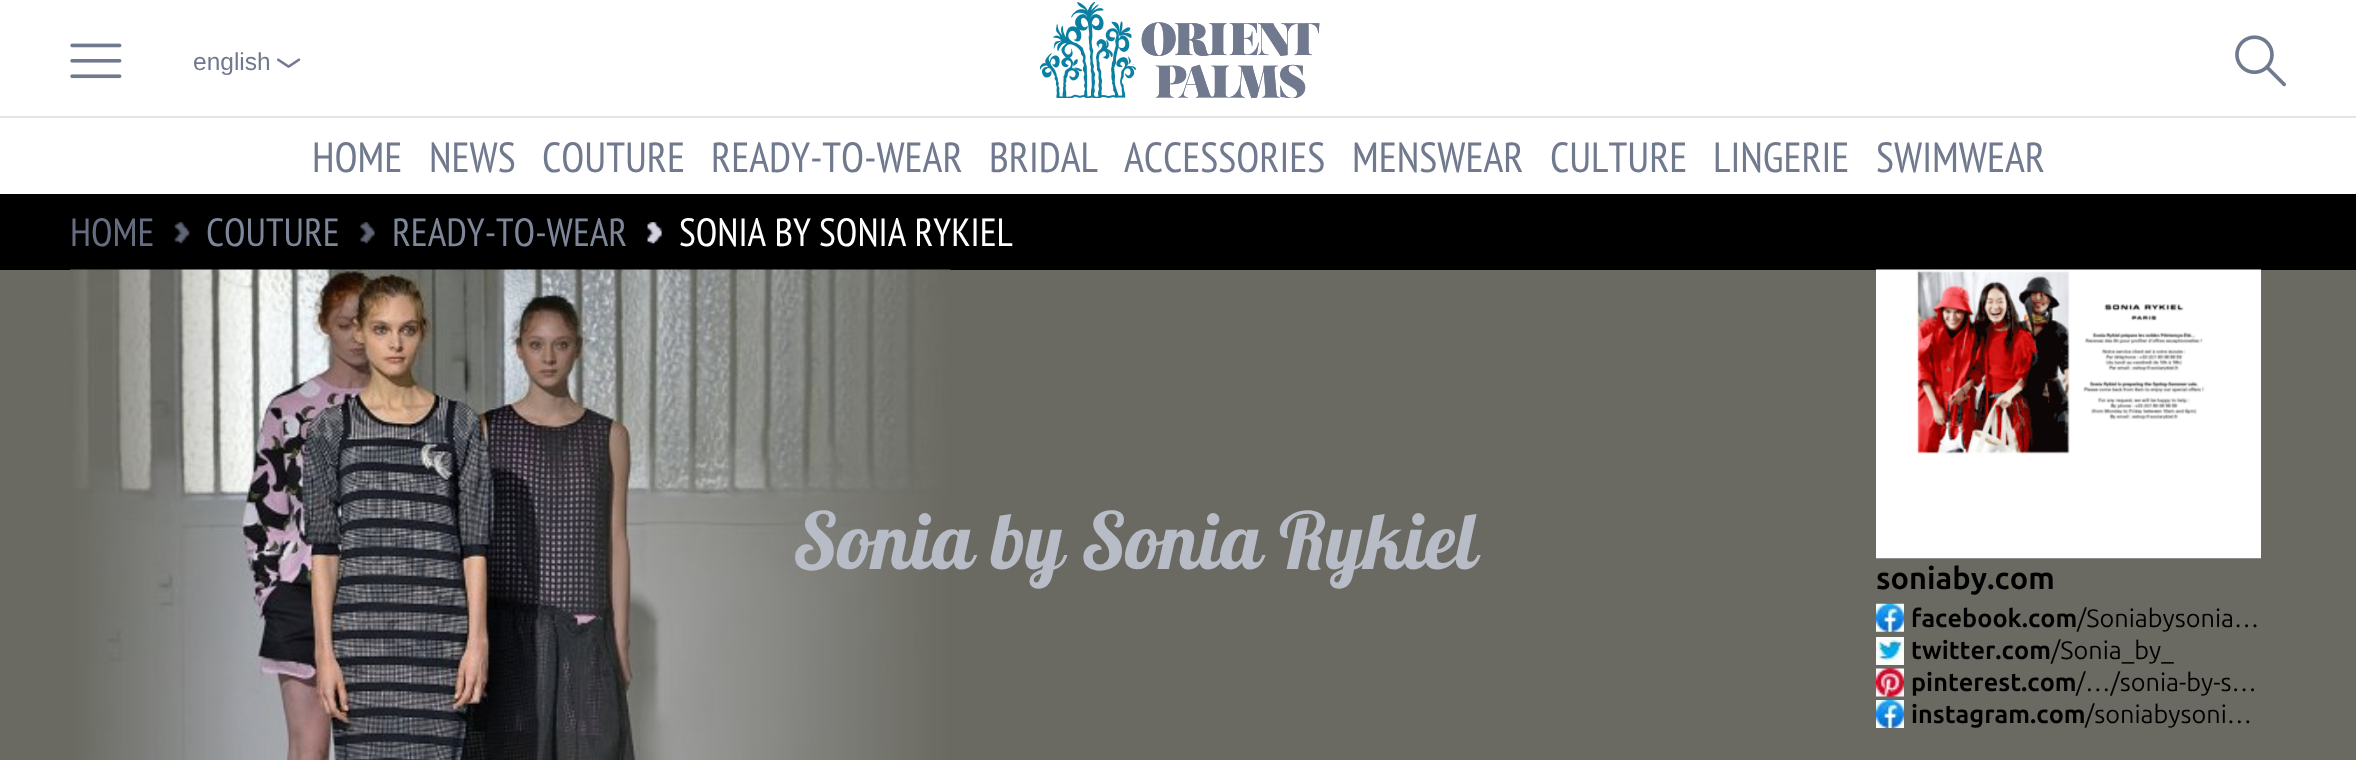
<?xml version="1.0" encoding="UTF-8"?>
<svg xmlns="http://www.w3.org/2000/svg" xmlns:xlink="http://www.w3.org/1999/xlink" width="2356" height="760">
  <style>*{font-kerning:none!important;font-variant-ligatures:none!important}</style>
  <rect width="100%" height="100%" fill="#ffffff" />
  <rect y="116" width="2356" height="2" fill="#e4e4e4" />
  <image x="70" y="43" width="52" height="36" xlink:href="image1.png" />
  <image x="277" y="58" width="24" height="10" xlink:href="image2.png" />
  <image x="1040" y="2" width="280" height="96" xlink:href="image3.png" />
  <image x="2235" y="35" width="51" height="52" xlink:href="image4.png" />
  <rect y="194" width="2356" height="76" fill="#000000" />
  <image x="174" y="222" width="16" height="22" xlink:href="image5.png" />
  <image x="360" y="222" width="15" height="22" xlink:href="image6.png" />
  <image x="647" y="222" width="15" height="22" xlink:href="image7.png" />
  <rect y="270" width="2356" height="490" fill="#6a6a62" />
  <image x="70" y="269" width="881" height="491" xlink:href="image8.png" />
  <image x="1876" y="269" width="385" height="290" xlink:href="image9.png" />
  <image x="1876" y="603" width="28" height="29" xlink:href="image10.png" />
  <image x="1876" y="637" width="28" height="28" xlink:href="image11.png" />
  <image x="1876" y="668" width="28" height="29" xlink:href="image12.png" />
  <image x="1876" y="700" width="28" height="28" xlink:href="image13.png" />
  <text x="193" y="70" style="font-family: Liberation Sans; font-size: 24.5px; fill: #70798e">english</text>
  <text x="312" y="172" style="font-family: PT Sans Narrow; font-size: 42px; fill: #70798e">HOME</text>
  <text x="429" y="172" style="font-family: PT Sans Narrow; font-size: 42px; fill: #70798e">NEWS</text>
  <text x="542" y="172" style="font-family: PT Sans Narrow; font-size: 42px; fill: #70798e">COUTURE</text>
  <text x="711" y="172" style="font-family: PT Sans Narrow; font-size: 42px; fill: #70798e">READY-TO-WEAR</text>
  <text x="989" y="172" style="font-family: PT Sans Narrow; font-size: 42px; fill: #70798e">BRIDAL</text>
  <text x="1124" y="172" style="font-family: PT Sans Narrow; font-size: 42px; fill: #70798e">ACCESSORIES</text>
  <text x="1352" y="172" style="font-family: PT Sans Narrow; font-size: 42px; fill: #70798e">MENSWEAR</text>
  <text x="1550" y="172" style="font-family: PT Sans Narrow; font-size: 42px; fill: #70798e">CULTURE</text>
  <text x="1713" y="172" style="font-family: PT Sans Narrow; font-size: 42px; fill: #70798e">LINGERIE</text>
  <text x="1876" y="172" style="font-family: PT Sans Narrow; font-size: 42px; fill: #70798e">SWIMWEAR</text>
  <text x="70" y="246" style="font-family: PT Sans Narrow; font-size: 39.25px; fill: #656d80">HOME</text>
  <text x="206" y="246" style="font-family: PT Sans Narrow; font-size: 39.25px; fill: #7e8699">COUTURE</text>
  <text x="392" y="246" style="font-family: PT Sans Narrow; font-size: 39.25px; fill: #7e8699">READY-TO-WEAR</text>
  <text x="679" y="246" style="font-family: PT Sans Narrow; font-size: 39.25px; fill: #ffffff">SONIA BY SONIA RYKIEL</text>
  <text x="793" y="569" style="font-family: 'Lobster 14'; font-size: 78.5px; fill: #b8bcc7">Sonia by Sonia Rykiel</text>
  <text x="1876" y="589" style="font-family: Ubuntu; font-size: 30.75px; font-weight: bold; fill: #000000">soniaby.com</text>
  <text x="1911" y="627" style="font-family: Ubuntu; font-size: 25.25px; font-weight: bold; fill: #000000">facebook.com</text>
  <text x="2077" y="627" style="font-family: Ubuntu; font-size: 25.25px; fill: #000000">/Soniabysonia…</text>
  <text x="1911" y="659" style="font-family: Ubuntu; font-size: 25.25px; font-weight: bold; fill: #000000">twitter.com</text>
  <text x="2051" y="659" style="font-family: Ubuntu; font-size: 25.25px; fill: #000000">/Sonia_by_</text>
  <text x="1911" y="691" style="font-family: Ubuntu; font-size: 25.25px; font-weight: bold; fill: #000000">pinterest.com</text>
  <text x="2076" y="691" style="font-family: Ubuntu; font-size: 25.25px; fill: #000000">/…/sonia-by-s…</text>
  <text x="1911" y="723" style="font-family: Ubuntu; font-size: 25.25px; font-weight: bold; fill: #000000">instagram.com</text>
  <text x="2085" y="723" style="font-family: Ubuntu; font-size: 25.25px; fill: #000000">/soniabysoni…</text>
</svg>
